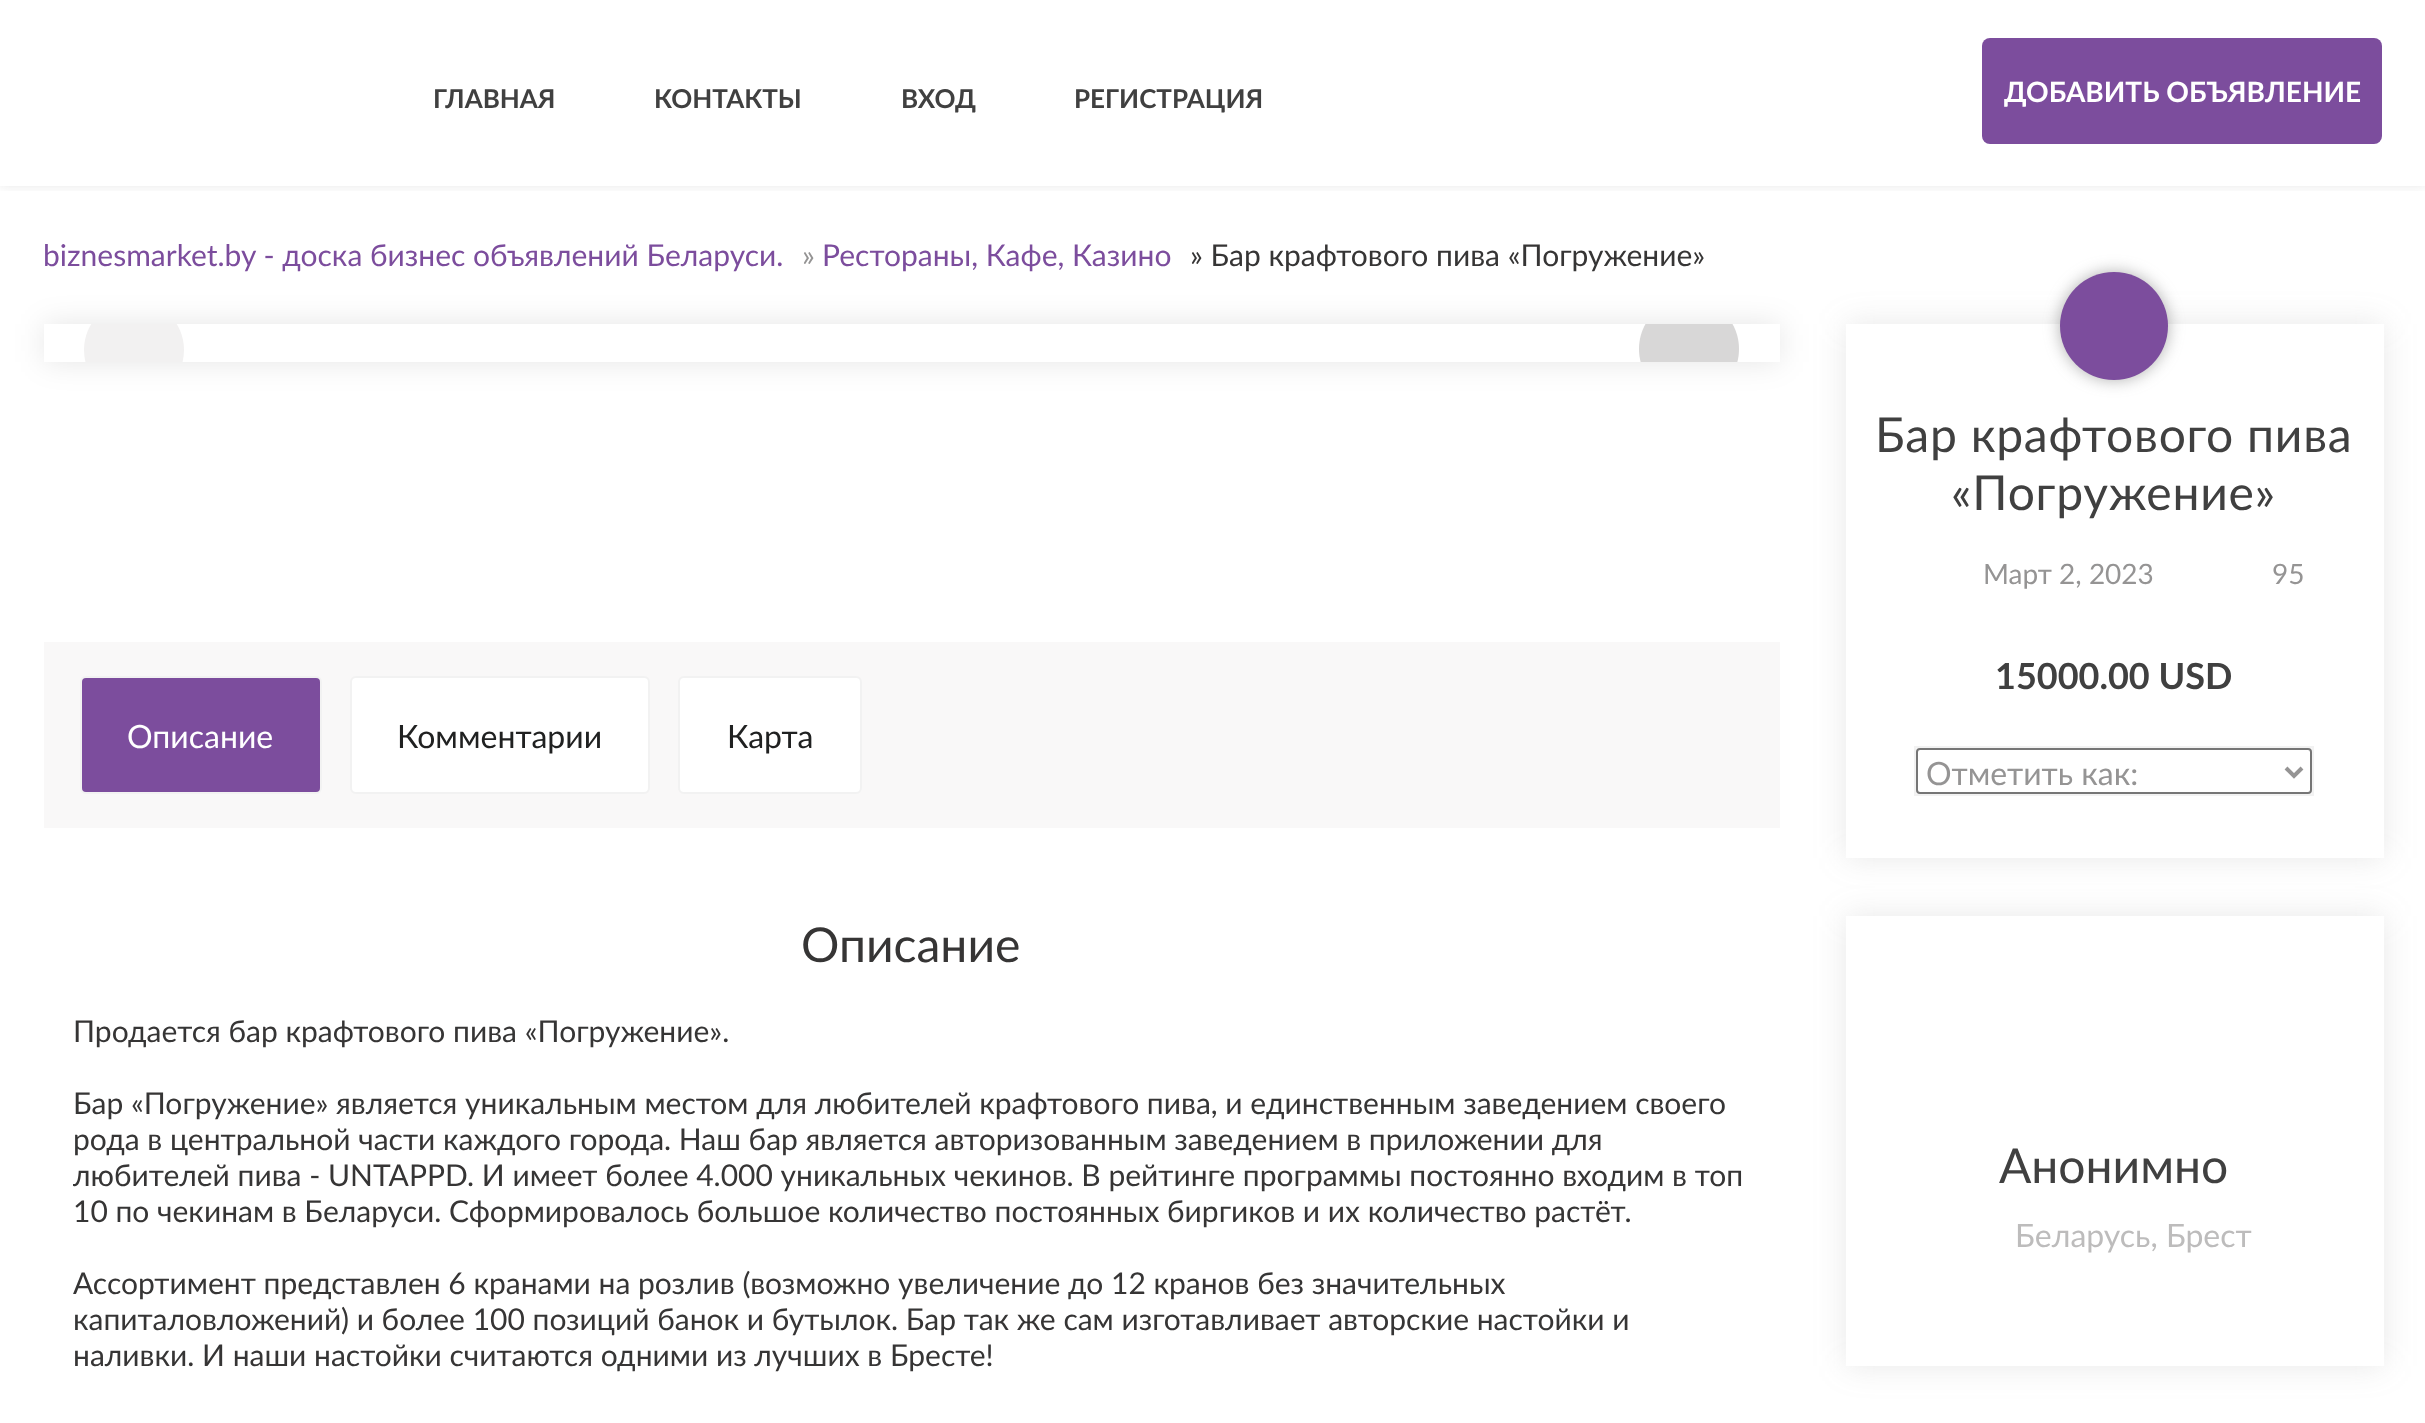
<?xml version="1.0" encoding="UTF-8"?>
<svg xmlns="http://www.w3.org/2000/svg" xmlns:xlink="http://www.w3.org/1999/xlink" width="2425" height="1423">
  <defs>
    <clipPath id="clip1"><rect x="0" y="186" width="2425" height="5" /></clipPath>
    <clipPath id="clip2"><path d="M 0 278 h 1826 v 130 h -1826 z m 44 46 h 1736 v 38 h -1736 z" clip-rule="evenodd" /></clipPath>
    <clipPath id="clip3"><rect x="44" y="324" width="1736" height="38" /></clipPath>
    <clipPath id="clip4"><path d="M 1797 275 h 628 v 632 h -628 z m 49 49 h 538 v 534 h -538 z" clip-rule="evenodd" /></clipPath>
    <clipPath id="clip5"><path d="M 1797 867 h 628 v 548 h -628 z m 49 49 h 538 v 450 h -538 z" clip-rule="evenodd" /></clipPath>
  </defs>
  <rect width="100%" height="100%" fill="#ffffff" />
  <g clip-path="url(#clip1)">
    <rect width="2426" height="186" fill="#303030" fill-opacity="0.11" filter="blur(6px)" />
  </g>
  <rect x="1982" y="38" width="400" height="106" rx="8" fill="#7c4d9d" />
  <g clip-path="url(#clip2)">
    <rect x="44" y="324" width="1736" height="38" fill="#000000" fill-opacity="0.1" filter="blur(15px)" />
  </g>
  <g clip-path="url(#clip3)">
    <circle cx="134" cy="350" r="50" fill="#f2f1f1" />
    <path d="M 1689 399 c -28 0 -50 -22 -50 -50 c 0 -28 22 -50 50 -50 c 28 0 50 22 50 50 c 0 28 -22 50 -50 50 z" fill="#d8d7d7" />
  </g>
  <rect x="44" y="642" width="1736" height="186" fill="#f9f8f8" />
  <rect x="81" y="677" width="240" height="116" rx="5" fill="#7c4d9d" stroke="#f2f2f2" stroke-width="2" />
  <rect x="351" y="677" width="298" height="116" rx="5" fill="#ffffff" stroke="#f2f2f2" stroke-width="2" />
  <rect x="679" y="677" width="182" height="116" rx="5" fill="#ffffff" stroke="#f2f2f2" stroke-width="2" />
  <g clip-path="url(#clip4)">
    <rect x="1846" y="324" width="538" height="534" fill="#6d6d6d" fill-opacity="0.16" filter="blur(16px)" />
  </g>
  <rect x="2060" y="272" width="108" height="108" rx="54" fill="#6d6d6d" fill-opacity="0.54" filter="blur(8px)" />
  <circle cx="2114" cy="326" r="54" fill="#7c4d9d" />
  <rect x="1915" y="747" width="398" height="48" fill="#f9f8f8" stroke="#f2f2f2" stroke-width="2" />
  <rect x="1917" y="749" width="394" height="44" rx="3" fill="#ffffff" stroke="#767676" stroke-width="2" />
  <path d="M 2286 768 l 8 8 l 8 -8" fill="none" stroke="#959494" stroke-width="4" />
  <g clip-path="url(#clip5)">
    <rect x="1846" y="916" width="538" height="450" fill="#6d6d6d" fill-opacity="0.16" filter="blur(16px)" />
  </g>
  <text x="433" y="108" style="font-family: Lato; font-size: 26px; font-weight: bold; fill: #404040">ГЛАВНАЯ</text>
  <text x="654" y="108" style="font-family: Lato; font-size: 26px; font-weight: bold; fill: #404040">КОНТАКТЫ</text>
  <text x="901" y="108" style="font-family: Lato; font-size: 26px; font-weight: bold; fill: #404040">ВХОД</text>
  <text x="1074" y="108" style="font-family: Lato; font-size: 26px; font-weight: bold; fill: #404040">РЕГИСТРАЦИЯ</text>
  <text x="2004" y="102" style="font-family: Lato; font-size: 28px; font-weight: bold; fill: #ffffff">ДОБАВИТЬ ОБЪЯВЛЕНИЕ</text>
  <text x="43" y="266" style="font-family: Lato; font-size: 30px; fill: #7c4d9d">biznesmarket.by - доска бизнес объявлений Беларуси.</text>
  <text x="802" y="266" style="font-family: Lato; font-size: 30px; fill: #959494">»</text>
  <text x="822" y="266" style="font-family: Lato; font-size: 30px; fill: #7c4d9d">Рестораны, Кафе, Казино</text>
  <text x="1190" y="266" style="font-family: Lato; font-size: 30px; fill: #363535">» Бар крафтового пива «Погружение»</text>
  <text x="127" y="748" style="font-family: Lato; font-size: 32px; fill: #ffffff">Описание</text>
  <text x="397" y="748" style="font-family: Lato; font-size: 32px; fill: #202121">Комментарии</text>
  <text x="727" y="748" style="font-family: Lato; font-size: 32px; fill: #202121">Карта</text>
  <text x="801" y="962" style="font-family: Lato; font-size: 48px; fill: #363535">Описание</text>
  <text x="73" y="1042" style="font-family: Lato; font-size: 30px; fill: #363535">Продается бар крафтового пива «Погружение».</text>
  <text x="73" y="1114" style="font-family: Lato; font-size: 30px; fill: #363535">Бар «Погружение» является уникальным местом для любителей крафтового пива, и единственным заведением своего</text>
  <text x="73" y="1150" style="font-family: Lato; font-size: 30px; fill: #363535">рода в центральной части каждого города. Наш бар является авторизованным заведением в приложении для</text>
  <text x="73" y="1186" style="font-family: Lato; font-size: 30px; fill: #363535">любителей пива - UNTAPPD. И имеет более 4.000 уникальных чекинов. В рейтинге программы постоянно входим в топ</text>
  <text x="73" y="1222" style="font-family: Lato; font-size: 30px; fill: #363535">10 по чекинам в Беларуси. Сформировалось большое количество постоянных биргиков и их количество растёт.</text>
  <text x="73" y="1294" style="font-family: Lato; font-size: 30px; fill: #363535">Ассортимент представлен 6 кранами на розлив (возможно увеличение до 12 кранов без значительных</text>
  <text x="73" y="1330" style="font-family: Lato; font-size: 30px; fill: #363535">капиталовложений) и более 100 позиций банок и бутылок. Бар так же сам изготавливает авторские настойки и</text>
  <text x="73" y="1366" style="font-family: Lato; font-size: 30px; fill: #363535">наливки. И наши настойки считаются одними из лучших в Бресте!</text>
  <text x="1875" y="452" style="font-family: Lato; font-size: 48px; letter-spacing: 0.75px; fill: #404040">Бар крафтового пива</text>
  <text x="1951" y="510" style="font-family: Lato; font-size: 48px; letter-spacing: 0.75px; fill: #404040">«Погружение»</text>
  <text x="1983" y="584" style="font-family: Lato; font-size: 28px; fill: #959494">Март 2, 2023</text>
  <text x="2272" y="584" style="font-family: Lato; font-size: 28px; fill: #959494">95</text>
  <text x="1995" y="689" style="font-family: Lato; font-size: 36px; font-weight: bold; fill: #404040">15000.00 USD</text>
  <text x="1926" y="785" style="font-family: Lato; font-size: 32px; fill: #959494">Отметить как:</text>
  <text x="1999" y="1183" style="font-family: Lato; font-size: 48px; fill: #404040">Анонимно</text>
  <text x="2015" y="1247" style="font-family: Lato; font-size: 32px; fill: #bdbcbc">Беларусь, Брест</text>
</svg>
